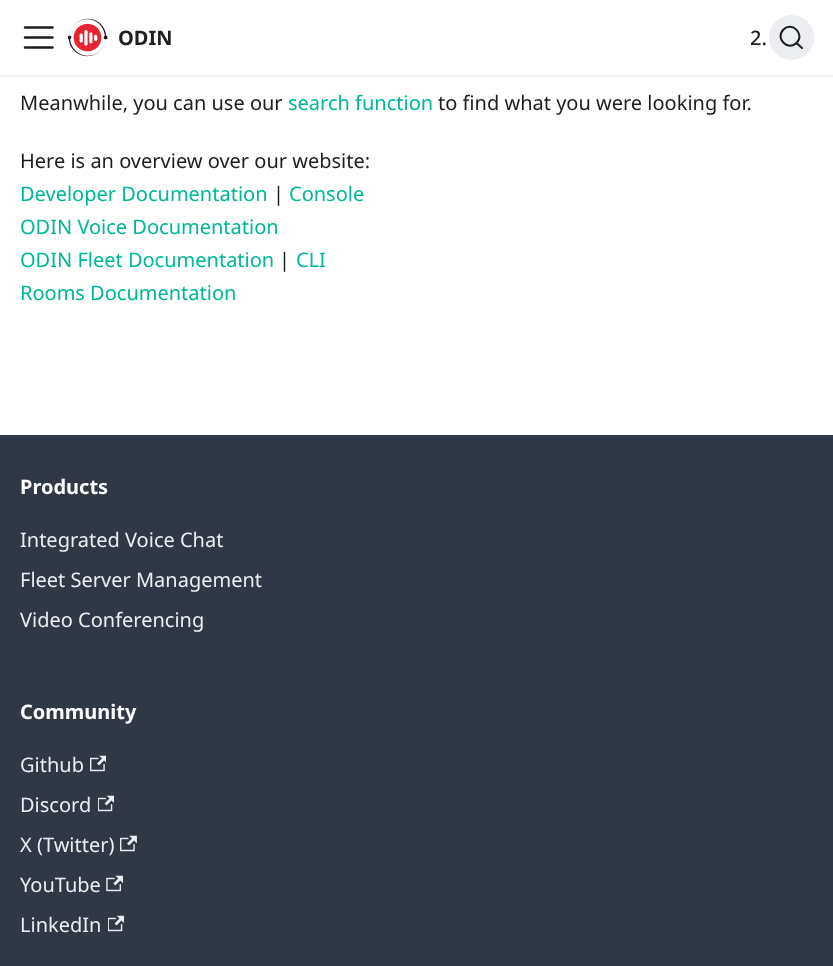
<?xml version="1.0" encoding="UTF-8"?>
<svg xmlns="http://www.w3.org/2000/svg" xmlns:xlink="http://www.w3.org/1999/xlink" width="833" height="966">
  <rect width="100%" height="100%" fill="#ffffff" />
  <rect y="1" width="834" height="75" fill="#000000" fill-opacity="0.1" filter="blur(1px)" />
  <rect width="833" height="75" fill="#ffffff" />
  <path d="M 25 27.5 h 27.5 m -27.5 10 h 27.5 m -27.5 10 h 27.5" fill="none" stroke="#1c1e21" stroke-width="2.5" stroke-linecap="round" />
  <image x="68" y="18" width="40" height="39" xlink:href="image1.png" />
  <circle cx="791.5" cy="37.5" r="22.5" fill="#ebedf0" />
  <path d="M 796.5 43 l 5.5 5 l -5.5 -5 c -8.5 8.5 -22 -4.5 -13 -13.5 c 8.5 -8.5 22 5 13 13.5 z" fill="none" stroke="#1c1e21" stroke-width="2" stroke-linecap="round" stroke-linejoin="round" />
  <rect y="435" width="833" height="531" fill="#303846" />
  <image x="90" y="755" width="16" height="17" xlink:href="image2.png" />
  <image x="98" y="795" width="16" height="17" xlink:href="image3.png" />
  <image x="120" y="835" width="17" height="17" xlink:href="image4.png" />
  <image x="106" y="875" width="17" height="17" xlink:href="image5.png" />
  <image x="108" y="915" width="16" height="17" xlink:href="image3.png" />
  <text x="118" y="45" style="font-family: Noto Sans; font-size: 20px; font-weight: bold; fill: #1c1e21">ODIN</text>
  <text x="750" y="45" style="font-family: Noto Sans; font-size: 20px; font-weight: 500; fill: #1c1e21">2.</text>
  <text x="20" y="110" style="font-family: Noto Sans; font-size: 20px; fill: #1c1e21">Meanwhile, you can use our</text>
  <text x="288" y="110" style="font-family: Noto Sans; font-size: 20px; fill: #00b798">search function</text>
  <text x="438" y="110" style="font-family: Noto Sans; font-size: 20px; fill: #1c1e21">to find what you were looking for.</text>
  <text x="20" y="168" style="font-family: Noto Sans; font-size: 20px; fill: #1c1e21">Here is an overview over our website:</text>
  <text x="20" y="201" style="font-family: Noto Sans; font-size: 20px; fill: #00b798">Developer Documentation</text>
  <text x="273" y="201" style="font-family: Noto Sans; font-size: 20px; fill: #1c1e21">|</text>
  <text x="289" y="201" style="font-family: Noto Sans; font-size: 20px; fill: #00b798">Console</text>
  <text x="20" y="234" style="font-family: Noto Sans; font-size: 20px; fill: #00b798">ODIN Voice Documentation</text>
  <text x="20" y="267" style="font-family: Noto Sans; font-size: 20px; fill: #00b798">ODIN Fleet Documentation</text>
  <text x="279" y="267" style="font-family: Noto Sans; font-size: 20px; fill: #1c1e21">|</text>
  <text x="296" y="267" style="font-family: Noto Sans; font-size: 20px; fill: #00b798">CLI</text>
  <text x="20" y="300" style="font-family: Noto Sans; font-size: 20px; fill: #00b798">Rooms Documentation</text>
  <text x="20" y="494" style="font-family: Noto Sans; font-size: 20px; font-weight: bold; fill: #ffffff">Products</text>
  <text x="20" y="547" style="font-family: Noto Sans; font-size: 20px; fill: #ebedf0">Integrated Voice Chat</text>
  <text x="20" y="587" style="font-family: Noto Sans; font-size: 20px; fill: #ebedf0">Fleet Server Management</text>
  <text x="20" y="627" style="font-family: Noto Sans; font-size: 20px; fill: #ebedf0">Video Conferencing</text>
  <text x="20" y="719" style="font-family: Noto Sans; font-size: 20px; font-weight: bold; fill: #ffffff">Community</text>
  <text x="20" y="772" style="font-family: Noto Sans; font-size: 20px; fill: #ebedf0">Github</text>
  <text x="20" y="812" style="font-family: Noto Sans; font-size: 20px; fill: #ebedf0">Discord</text>
  <text x="20" y="852" style="font-family: Noto Sans; font-size: 20px; fill: #ebedf0">X (Twitter)</text>
  <text x="20" y="892" style="font-family: Noto Sans; font-size: 20px; fill: #ebedf0">YouTube</text>
  <text x="20" y="932" style="font-family: Noto Sans; font-size: 20px; fill: #ebedf0">LinkedIn</text>
</svg>
